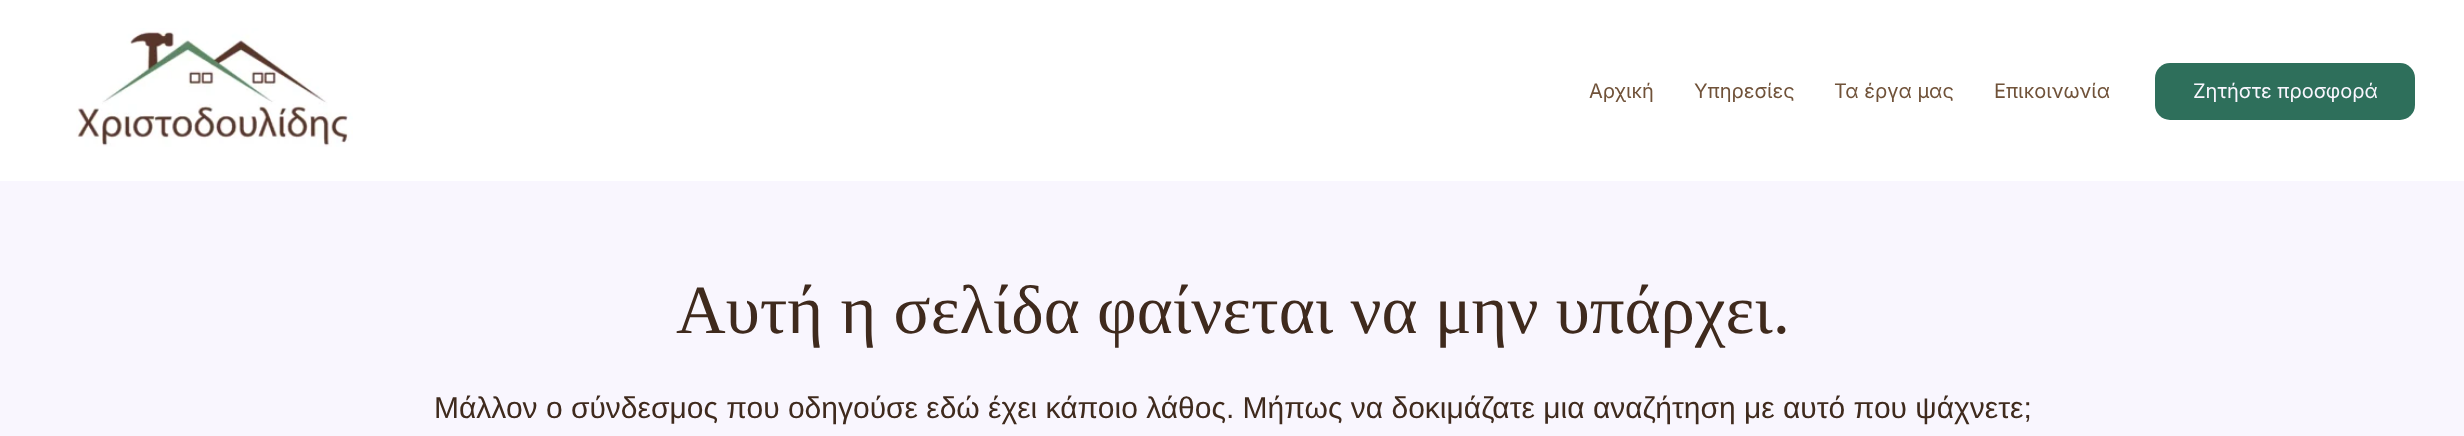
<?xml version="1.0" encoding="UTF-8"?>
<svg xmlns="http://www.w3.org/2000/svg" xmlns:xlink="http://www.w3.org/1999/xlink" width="2464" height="436">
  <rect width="100%" height="100%" fill="#f9f6fe" />
  <rect width="2464" height="181" fill="#ffffff" />
  <image x="76" y="28" width="277" height="119" xlink:href="image1.png" />
  <rect x="2155" y="63" width="260" height="57" rx="15" fill="#2e6f5b" />
  <text x="1589" y="98" style="font-family: Inter; font-size: 20px; fill: #705239">Αρχική</text>
  <text x="1694" y="98" style="font-family: Inter; font-size: 20px; fill: #705239">Υπηρεσίες</text>
  <text x="1834" y="98" style="font-family: Inter; font-size: 20px; fill: #705239">Τα έργα μας</text>
  <text x="1994" y="98" style="font-family: Inter; font-size: 20px; fill: #705239">Επικοινωνία</text>
  <text x="2193" y="98" style="font-family: Inter; font-size: 20px; fill: #f9f6fe">Ζητήστε προσφορά</text>
  <text x="676" y="333" style="font-family: Liberation Serif; font-size: 68.75px; fill: #3f2a1d">Αυτή η σελίδα φαίνεται να μην υπάρχει.</text>
  <text x="434" y="418" style="font-family: Liberation Sans; font-size: 30px; fill: #3f2a1d">Μάλλον ο σύνδεσμος που οδηγούσε εδώ έχει κάποιο λάθος. Μήπως να δοκιμάζατε μια αναζήτηση με αυτό που ψάχνετε;</text>
</svg>
